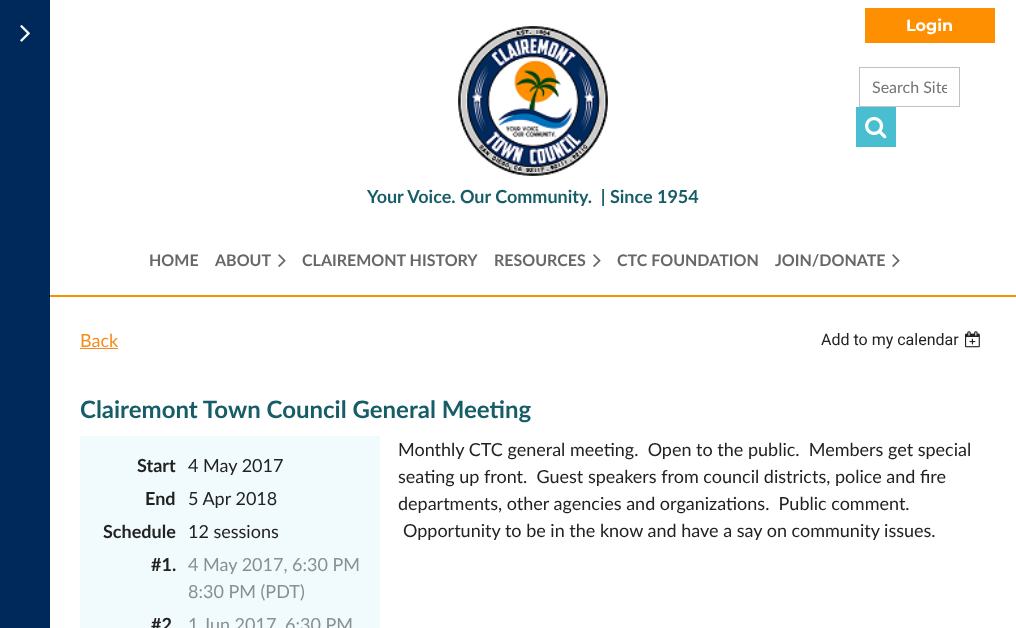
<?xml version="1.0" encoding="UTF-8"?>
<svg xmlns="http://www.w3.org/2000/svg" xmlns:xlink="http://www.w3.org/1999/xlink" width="1016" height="628">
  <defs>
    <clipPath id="clip1"><rect x="872" y="77" width="75" height="19" /></clipPath>
  </defs>
  <rect width="100%" height="100%" fill="#ffffff" />
  <rect width="50" height="628" fill="#00295b" />
  <image x="20" y="25" width="10" height="17" xlink:href="image1.png" />
  <rect x="50" y="295" width="966" height="2" fill="#fe9000" />
  <rect x="865" y="8" width="130" height="35" fill="#fd8f00" />
  <rect x="859.5" y="67.5" width="100" height="39" fill="none" stroke="#c1c1c1" />
  <rect x="856" y="107" width="40" height="40" fill="#48bed0" />
  <image x="865" y="116" width="22" height="23" xlink:href="image2.png" />
  <image x="458" y="26" width="150" height="150" xlink:href="image3.png" />
  <image x="278" y="254" width="8" height="13" xlink:href="image4.png" />
  <image x="593" y="254" width="8" height="13" xlink:href="image4.png" />
  <image x="892" y="254" width="8" height="13" xlink:href="image4.png" />
  <rect x="80" y="348" width="38" height="1" fill="#f48d1d" />
  <image x="965" y="331" width="15" height="17" xlink:href="image5.png" />
  <rect x="80" y="436" width="300" height="192" fill="#f1fbfd" />
  <text x="906" y="31" style="font-family: Montserrat; font-size: 16px; font-weight: bold; fill: #ffffff">Login</text>
  <g clip-path="url(#clip1)">
    <text x="872" y="93" style="font-family: Lato; font-size: 16px; fill: #757575">Search Site</text>
  </g>
  <text x="367" y="203" style="font-family: Lato; font-size: 18px; font-weight: bold; fill: #175d68" xml:space="preserve">Your Voice. Our Community.  | Since 1954</text>
  <text x="149" y="266" style="font-family: Lato; font-size: 16px; font-weight: bold; fill: #676767">HOME</text>
  <text x="215" y="266" style="font-family: Lato; font-size: 16px; font-weight: bold; fill: #676767">ABOUT</text>
  <text x="302" y="266" style="font-family: Lato; font-size: 16px; font-weight: bold; fill: #676767">CLAIREMONT HISTORY</text>
  <text x="494" y="266" style="font-family: Lato; font-size: 16px; font-weight: bold; fill: #676767">RESOURCES</text>
  <text x="617" y="266" style="font-family: Lato; font-size: 16px; font-weight: bold; fill: #676767">CTC FOUNDATION</text>
  <text x="775" y="266" style="font-family: Lato; font-size: 16px; font-weight: bold; fill: #676767">JOIN/DONATE</text>
  <text x="80" y="347" style="font-family: Lato; font-size: 18px; fill: #f48d1d">Back</text>
  <text x="821" y="345" style="font-family: Roboto; font-size: 16px; fill: #222222">Add to my calendar</text>
  <text x="80" y="418" style="font-family: Lato; font-size: 24px; font-weight: bold; fill: #175d68">Clairemont Town Council General Meeting</text>
  <text x="137" y="472" style="font-family: Lato; font-size: 18px; font-weight: bold; fill: #222222">Start</text>
  <text x="188" y="472" style="font-family: Lato; font-size: 18px; fill: #222222">4 May 2017</text>
  <text x="145" y="505" style="font-family: Lato; font-size: 18px; font-weight: bold; fill: #222222">End</text>
  <text x="188" y="505" style="font-family: Lato; font-size: 18px; fill: #222222">5 Apr 2018</text>
  <text x="103" y="538" style="font-family: Lato; font-size: 18px; font-weight: bold; fill: #222222">Schedule</text>
  <text x="188" y="538" style="font-family: Lato; font-size: 18px; fill: #222222">12 sessions</text>
  <text x="151" y="571" style="font-family: Lato; font-size: 18px; font-weight: bold; fill: #222222">#1.</text>
  <text x="188" y="571" style="font-family: Lato; font-size: 18px; fill: #8a8f90">4 May 2017, 6:30 PM</text>
  <text x="188" y="598" style="font-family: Lato; font-size: 18px; fill: #8a8f90">8:30 PM (PDT)</text>
  <text x="151" y="631" style="font-family: Lato; font-size: 18px; font-weight: bold; fill: #222222">#2</text>
  <text x="188" y="631" style="font-family: Lato; font-size: 18px; fill: #8a8f90">1 Jun 2017, 6:30 PM</text>
  <text x="398" y="456" style="font-family: Lato; font-size: 18px; fill: #222222" xml:space="preserve">Monthly CTC general meeting.  Open to the public.  Members get special</text>
  <text x="398" y="483" style="font-family: Lato; font-size: 18px; fill: #222222" xml:space="preserve">seating up front.  Guest speakers from council districts, police and fire</text>
  <text x="398" y="510" style="font-family: Lato; font-size: 18px; fill: #222222" xml:space="preserve">departments, other agencies and organizations.  Public comment.</text>
  <text x="403" y="537" style="font-family: Lato; font-size: 18px; fill: #222222">Opportunity to be in the know and have a say on community issues.</text>
</svg>
